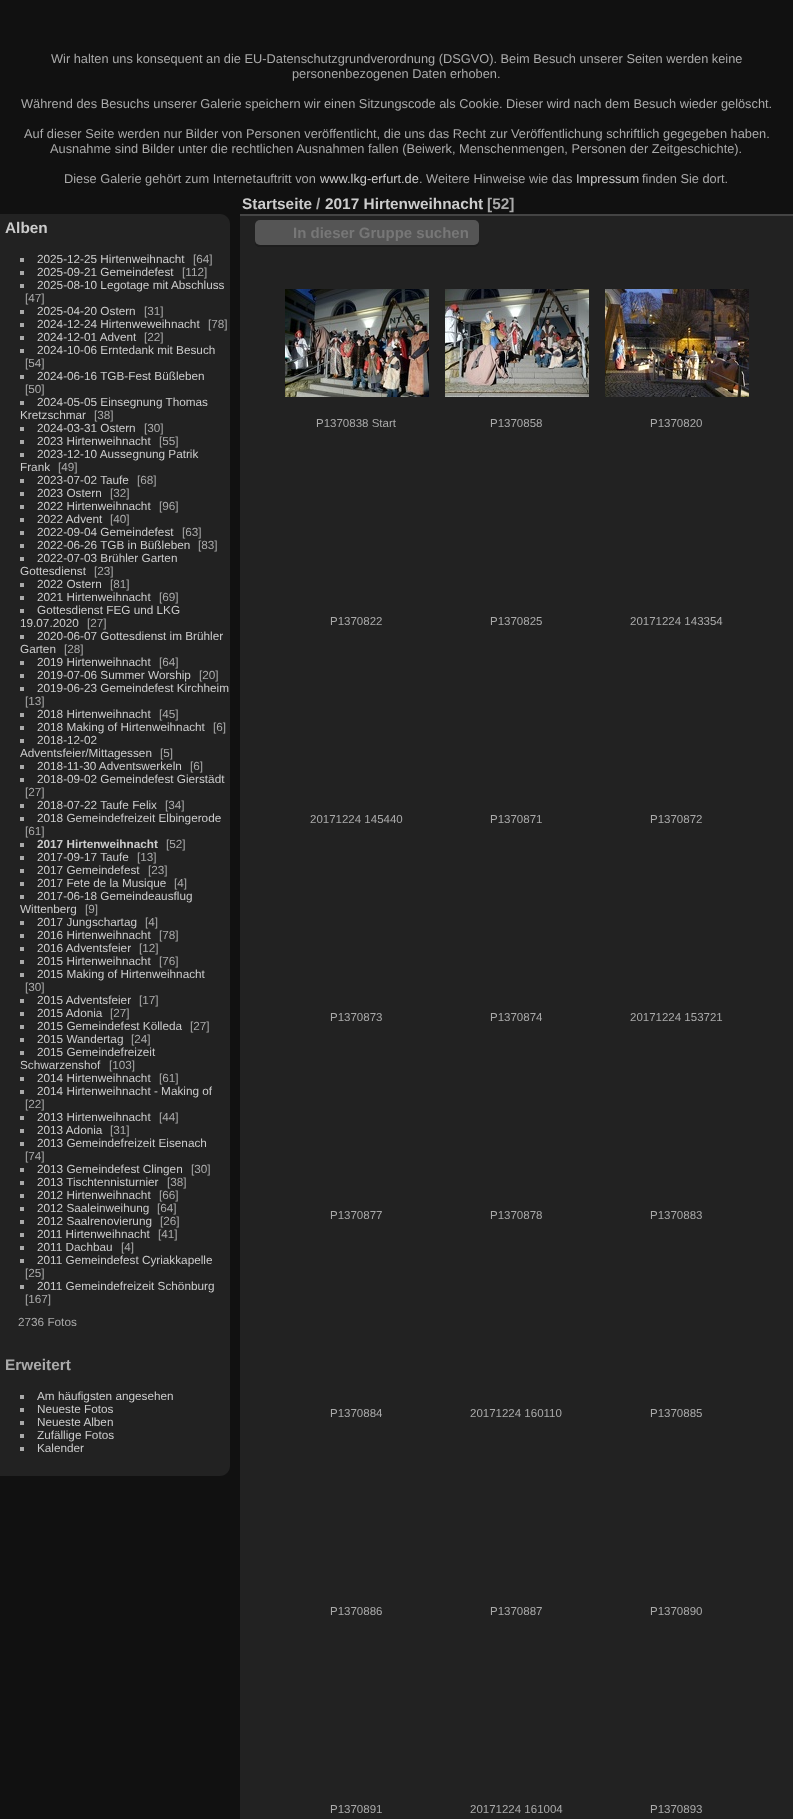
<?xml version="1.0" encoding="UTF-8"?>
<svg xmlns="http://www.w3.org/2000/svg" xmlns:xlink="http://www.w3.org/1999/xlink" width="793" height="1819">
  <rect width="100%" height="100%" fill="#111111" />
  <path d="M 0 214 h 220 c 5.5 0 10 4.5 10 10 v 1242 c 0 5.5 -4.5 10 -10 10 h -220 z" fill="#222222" />
  <rect x="20" y="258" width="4" height="4" fill="#aaaaaa" />
  <rect x="20" y="271" width="4" height="4" fill="#aaaaaa" />
  <rect x="20" y="284" width="4" height="4" fill="#aaaaaa" />
  <rect x="20" y="310" width="4" height="4" fill="#aaaaaa" />
  <rect x="20" y="323" width="4" height="4" fill="#aaaaaa" />
  <rect x="20" y="336" width="4" height="4" fill="#aaaaaa" />
  <rect x="20" y="349" width="4" height="4" fill="#aaaaaa" />
  <rect x="20" y="375" width="4" height="4" fill="#aaaaaa" />
  <rect x="20" y="401" width="4" height="4" fill="#aaaaaa" />
  <rect x="20" y="427" width="4" height="4" fill="#aaaaaa" />
  <rect x="20" y="440" width="4" height="4" fill="#aaaaaa" />
  <rect x="20" y="453" width="4" height="4" fill="#aaaaaa" />
  <rect x="20" y="479" width="4" height="4" fill="#aaaaaa" />
  <rect x="20" y="492" width="4" height="4" fill="#aaaaaa" />
  <rect x="20" y="505" width="4" height="4" fill="#aaaaaa" />
  <rect x="20" y="518" width="4" height="4" fill="#aaaaaa" />
  <rect x="20" y="531" width="4" height="4" fill="#aaaaaa" />
  <rect x="20" y="544" width="4" height="4" fill="#aaaaaa" />
  <rect x="20" y="557" width="4" height="4" fill="#aaaaaa" />
  <rect x="20" y="583" width="4" height="4" fill="#aaaaaa" />
  <rect x="20" y="596" width="4" height="4" fill="#aaaaaa" />
  <rect x="20" y="609" width="4" height="4" fill="#aaaaaa" />
  <rect x="20" y="635" width="4" height="4" fill="#aaaaaa" />
  <rect x="20" y="661" width="4" height="4" fill="#aaaaaa" />
  <rect x="20" y="674" width="4" height="4" fill="#aaaaaa" />
  <rect x="20" y="687" width="4" height="4" fill="#aaaaaa" />
  <rect x="20" y="713" width="4" height="4" fill="#aaaaaa" />
  <rect x="20" y="726" width="4" height="4" fill="#aaaaaa" />
  <rect x="20" y="739" width="4" height="4" fill="#aaaaaa" />
  <rect x="20" y="765" width="4" height="4" fill="#aaaaaa" />
  <rect x="20" y="778" width="4" height="4" fill="#aaaaaa" />
  <rect x="20" y="804" width="4" height="4" fill="#aaaaaa" />
  <rect x="20" y="817" width="4" height="4" fill="#aaaaaa" />
  <rect x="20" y="843" width="4" height="4" fill="#aaaaaa" />
  <rect x="20" y="856" width="4" height="4" fill="#aaaaaa" />
  <rect x="20" y="869" width="4" height="4" fill="#aaaaaa" />
  <rect x="20" y="882" width="4" height="4" fill="#aaaaaa" />
  <rect x="20" y="895" width="4" height="4" fill="#aaaaaa" />
  <rect x="20" y="921" width="4" height="4" fill="#aaaaaa" />
  <rect x="20" y="934" width="4" height="4" fill="#aaaaaa" />
  <rect x="20" y="947" width="4" height="4" fill="#aaaaaa" />
  <rect x="20" y="960" width="4" height="4" fill="#aaaaaa" />
  <rect x="20" y="973" width="4" height="4" fill="#aaaaaa" />
  <rect x="20" y="999" width="4" height="4" fill="#aaaaaa" />
  <rect x="20" y="1012" width="4" height="4" fill="#aaaaaa" />
  <rect x="20" y="1025" width="4" height="4" fill="#aaaaaa" />
  <rect x="20" y="1038" width="4" height="4" fill="#aaaaaa" />
  <rect x="20" y="1051" width="4" height="4" fill="#aaaaaa" />
  <rect x="20" y="1077" width="4" height="4" fill="#aaaaaa" />
  <rect x="20" y="1090" width="4" height="4" fill="#aaaaaa" />
  <rect x="20" y="1116" width="4" height="4" fill="#aaaaaa" />
  <rect x="20" y="1129" width="4" height="4" fill="#aaaaaa" />
  <rect x="20" y="1142" width="4" height="4" fill="#aaaaaa" />
  <rect x="20" y="1168" width="4" height="4" fill="#aaaaaa" />
  <rect x="20" y="1181" width="4" height="4" fill="#aaaaaa" />
  <rect x="20" y="1194" width="4" height="4" fill="#aaaaaa" />
  <rect x="20" y="1207" width="4" height="4" fill="#aaaaaa" />
  <rect x="20" y="1220" width="4" height="4" fill="#aaaaaa" />
  <rect x="20" y="1233" width="4" height="4" fill="#aaaaaa" />
  <rect x="20" y="1246" width="4" height="4" fill="#aaaaaa" />
  <rect x="20" y="1259" width="4" height="4" fill="#aaaaaa" />
  <rect x="20" y="1285" width="4" height="4" fill="#aaaaaa" />
  <rect x="20" y="1395" width="4" height="4" fill="#aaaaaa" />
  <rect x="20" y="1408" width="4" height="4" fill="#aaaaaa" />
  <rect x="20" y="1421" width="4" height="4" fill="#aaaaaa" />
  <rect x="20" y="1434" width="4" height="4" fill="#aaaaaa" />
  <rect x="20" y="1447" width="4" height="4" fill="#aaaaaa" />
  <rect x="240" y="216" width="553" height="1603" fill="#222222" />
  <rect x="240" y="214" width="553" height="2" fill="#444444" />
  <path d="M 255 240 v 2 c 0 3 2 5 5 5 h 214 c 3 0 5 -2 5 -5 v -2 c 0 3 -2 5 -5 5 h -214 c -3 0 -5 -2 -5 -5 z" fill="#1d1d1d" />
  <rect x="255" y="220" width="224" height="25" rx="5" fill="#555555" />
  <image x="285" y="289" width="144" height="108" xlink:href="image1.png" />
  <image x="445" y="289" width="144" height="108" xlink:href="image2.png" />
  <image x="605" y="289" width="144" height="108" xlink:href="image3.png" />
  <text x="51" y="63" style="font-family: Liberation Sans; font-size: 12.8px; fill: #aaaaaa">Wir halten uns konsequent an die EU-Datenschutzgrundverordnung (DSGVO). Beim Besuch unserer Seiten werden keine</text>
  <text x="292" y="78" style="font-family: Liberation Sans; font-size: 12.8px; fill: #aaaaaa">personenbezogenen Daten erhoben.</text>
  <text x="21" y="108" style="font-family: Liberation Sans; font-size: 12.8px; fill: #aaaaaa">Während des Besuchs unserer Galerie speichern wir einen Sitzungscode als Cookie. Dieser wird nach dem Besuch wieder gelöscht.</text>
  <text x="24" y="138" style="font-family: Liberation Sans; font-size: 12.8px; fill: #aaaaaa">Auf dieser Seite werden nur Bilder von Personen veröffentlicht, die uns das Recht zur Veröffentlichung schriftlich gegegeben haben.</text>
  <text x="50" y="153" style="font-family: Liberation Sans; font-size: 12.8px; fill: #aaaaaa">Ausnahme sind Bilder unter die rechtlichen Ausnahmen fallen (Beiwerk, Menschenmengen, Personen der Zeitgeschichte).</text>
  <text x="64" y="183" style="font-family: Liberation Sans; font-size: 12.8px; fill: #aaaaaa">Diese Galerie gehört zum Internetauftritt von</text>
  <text x="320" y="183" style="font-family: Liberation Sans; font-size: 12.8px; fill: #cccccc">www.lkg-erfurt.de</text>
  <text x="419" y="183" style="font-family: Liberation Sans; font-size: 12.8px; fill: #aaaaaa">. Weitere Hinweise wie das</text>
  <text x="576" y="183" style="font-family: Liberation Sans; font-size: 12.8px; fill: #cccccc">Impressum</text>
  <text x="642" y="183" style="font-family: Liberation Sans; font-size: 12.8px; fill: #aaaaaa">finden Sie dort.</text>
  <text x="5" y="233" style="font-family: Liberation Sans; font-size: 15.4px; font-weight: bold; fill: #cccccc">Alben</text>
  <text x="37" y="263" style="font-family: Liberation Sans; font-size: 11.75px; fill: #cccccc">2025-12-25 Hirtenweihnacht</text>
  <text x="193" y="263" style="font-family: Liberation Sans; font-size: 11.75px; fill: #aaaaaa">[64]</text>
  <text x="37" y="276" style="font-family: Liberation Sans; font-size: 11.75px; fill: #cccccc">2025-09-21 Gemeindefest</text>
  <text x="182" y="276" style="font-family: Liberation Sans; font-size: 11.75px; fill: #aaaaaa">[112]</text>
  <text x="37" y="289" style="font-family: Liberation Sans; font-size: 11.75px; fill: #cccccc">2025-08-10 Legotage mit Abschluss</text>
  <text x="25" y="302" style="font-family: Liberation Sans; font-size: 11.75px; fill: #aaaaaa">[47]</text>
  <text x="37" y="315" style="font-family: Liberation Sans; font-size: 11.75px; fill: #cccccc">2025-04-20 Ostern</text>
  <text x="144" y="315" style="font-family: Liberation Sans; font-size: 11.75px; fill: #aaaaaa">[31]</text>
  <text x="37" y="328" style="font-family: Liberation Sans; font-size: 11.75px; fill: #cccccc">2024-12-24 Hirtenweweihnacht</text>
  <text x="208" y="328" style="font-family: Liberation Sans; font-size: 11.75px; fill: #aaaaaa">[78]</text>
  <text x="37" y="341" style="font-family: Liberation Sans; font-size: 11.75px; fill: #cccccc">2024-12-01 Advent</text>
  <text x="144" y="341" style="font-family: Liberation Sans; font-size: 11.75px; fill: #aaaaaa">[22]</text>
  <text x="37" y="354" style="font-family: Liberation Sans; font-size: 11.75px; fill: #cccccc">2024-10-06 Erntedank mit Besuch</text>
  <text x="25" y="367" style="font-family: Liberation Sans; font-size: 11.75px; fill: #aaaaaa">[54]</text>
  <text x="37" y="380" style="font-family: Liberation Sans; font-size: 11.75px; fill: #cccccc">2024-06-16 TGB-Fest Büßleben</text>
  <text x="25" y="393" style="font-family: Liberation Sans; font-size: 11.75px; fill: #aaaaaa">[50]</text>
  <text x="37" y="406" style="font-family: Liberation Sans; font-size: 11.75px; fill: #cccccc">2024-05-05 Einsegnung Thomas</text>
  <text x="20" y="419" style="font-family: Liberation Sans; font-size: 11.75px; fill: #cccccc">Kretzschmar</text>
  <text x="94" y="419" style="font-family: Liberation Sans; font-size: 11.75px; fill: #aaaaaa">[38]</text>
  <text x="37" y="432" style="font-family: Liberation Sans; font-size: 11.75px; fill: #cccccc">2024-03-31 Ostern</text>
  <text x="144" y="432" style="font-family: Liberation Sans; font-size: 11.75px; fill: #aaaaaa">[30]</text>
  <text x="37" y="445" style="font-family: Liberation Sans; font-size: 11.75px; fill: #cccccc">2023 Hirtenweihnacht</text>
  <text x="159" y="445" style="font-family: Liberation Sans; font-size: 11.75px; fill: #aaaaaa">[55]</text>
  <text x="37" y="458" style="font-family: Liberation Sans; font-size: 11.75px; fill: #cccccc">2023-12-10 Aussegnung Patrik</text>
  <text x="20" y="471" style="font-family: Liberation Sans; font-size: 11.75px; fill: #cccccc">Frank</text>
  <text x="58" y="471" style="font-family: Liberation Sans; font-size: 11.75px; fill: #aaaaaa">[49]</text>
  <text x="37" y="484" style="font-family: Liberation Sans; font-size: 11.75px; fill: #cccccc">2023-07-02 Taufe</text>
  <text x="137" y="484" style="font-family: Liberation Sans; font-size: 11.75px; fill: #aaaaaa">[68]</text>
  <text x="37" y="497" style="font-family: Liberation Sans; font-size: 11.75px; fill: #cccccc">2023 Ostern</text>
  <text x="110" y="497" style="font-family: Liberation Sans; font-size: 11.75px; fill: #aaaaaa">[32]</text>
  <text x="37" y="510" style="font-family: Liberation Sans; font-size: 11.75px; fill: #cccccc">2022 Hirtenweihnacht</text>
  <text x="159" y="510" style="font-family: Liberation Sans; font-size: 11.75px; fill: #aaaaaa">[96]</text>
  <text x="37" y="523" style="font-family: Liberation Sans; font-size: 11.75px; fill: #cccccc">2022 Advent</text>
  <text x="110" y="523" style="font-family: Liberation Sans; font-size: 11.75px; fill: #aaaaaa">[40]</text>
  <text x="37" y="536" style="font-family: Liberation Sans; font-size: 11.75px; fill: #cccccc">2022-09-04 Gemeindefest</text>
  <text x="182" y="536" style="font-family: Liberation Sans; font-size: 11.75px; fill: #aaaaaa">[63]</text>
  <text x="37" y="549" style="font-family: Liberation Sans; font-size: 11.75px; fill: #cccccc">2022-06-26 TGB in Büßleben</text>
  <text x="198" y="549" style="font-family: Liberation Sans; font-size: 11.75px; fill: #aaaaaa">[83]</text>
  <text x="37" y="562" style="font-family: Liberation Sans; font-size: 11.75px; fill: #cccccc">2022-07-03 Brühler Garten</text>
  <text x="20" y="575" style="font-family: Liberation Sans; font-size: 11.75px; fill: #cccccc">Gottesdienst</text>
  <text x="94" y="575" style="font-family: Liberation Sans; font-size: 11.75px; fill: #aaaaaa">[23]</text>
  <text x="37" y="588" style="font-family: Liberation Sans; font-size: 11.75px; fill: #cccccc">2022 Ostern</text>
  <text x="110" y="588" style="font-family: Liberation Sans; font-size: 11.75px; fill: #aaaaaa">[81]</text>
  <text x="37" y="601" style="font-family: Liberation Sans; font-size: 11.75px; fill: #cccccc">2021 Hirtenweihnacht</text>
  <text x="159" y="601" style="font-family: Liberation Sans; font-size: 11.75px; fill: #aaaaaa">[69]</text>
  <text x="37" y="614" style="font-family: Liberation Sans; font-size: 11.75px; fill: #cccccc">Gottesdienst FEG und LKG</text>
  <text x="20" y="627" style="font-family: Liberation Sans; font-size: 11.75px; fill: #cccccc">19.07.2020</text>
  <text x="87" y="627" style="font-family: Liberation Sans; font-size: 11.75px; fill: #aaaaaa">[27]</text>
  <text x="37" y="640" style="font-family: Liberation Sans; font-size: 11.75px; fill: #cccccc">2020-06-07 Gottesdienst im Brühler</text>
  <text x="20" y="653" style="font-family: Liberation Sans; font-size: 11.75px; fill: #cccccc">Garten</text>
  <text x="64" y="653" style="font-family: Liberation Sans; font-size: 11.75px; fill: #aaaaaa">[28]</text>
  <text x="37" y="666" style="font-family: Liberation Sans; font-size: 11.75px; fill: #cccccc">2019 Hirtenweihnacht</text>
  <text x="159" y="666" style="font-family: Liberation Sans; font-size: 11.75px; fill: #aaaaaa">[64]</text>
  <text x="37" y="679" style="font-family: Liberation Sans; font-size: 11.75px; fill: #cccccc">2019-07-06 Summer Worship</text>
  <text x="199" y="679" style="font-family: Liberation Sans; font-size: 11.75px; fill: #aaaaaa">[20]</text>
  <text x="37" y="692" style="font-family: Liberation Sans; font-size: 11.75px; fill: #cccccc">2019-06-23 Gemeindefest Kirchheim</text>
  <text x="25" y="705" style="font-family: Liberation Sans; font-size: 11.75px; fill: #aaaaaa">[13]</text>
  <text x="37" y="718" style="font-family: Liberation Sans; font-size: 11.75px; fill: #cccccc">2018 Hirtenweihnacht</text>
  <text x="159" y="718" style="font-family: Liberation Sans; font-size: 11.75px; fill: #aaaaaa">[45]</text>
  <text x="37" y="731" style="font-family: Liberation Sans; font-size: 11.75px; fill: #cccccc">2018 Making of Hirtenweihnacht</text>
  <text x="213" y="731" style="font-family: Liberation Sans; font-size: 11.75px; fill: #aaaaaa">[6]</text>
  <text x="37" y="744" style="font-family: Liberation Sans; font-size: 11.75px; fill: #cccccc">2018-12-02</text>
  <text x="20" y="757" style="font-family: Liberation Sans; font-size: 11.75px; fill: #cccccc">Adventsfeier/Mittagessen</text>
  <text x="160" y="757" style="font-family: Liberation Sans; font-size: 11.75px; fill: #aaaaaa">[5]</text>
  <text x="37" y="770" style="font-family: Liberation Sans; font-size: 11.75px; fill: #cccccc">2018-11-30 Adventswerkeln</text>
  <text x="190" y="770" style="font-family: Liberation Sans; font-size: 11.75px; fill: #aaaaaa">[6]</text>
  <text x="37" y="783" style="font-family: Liberation Sans; font-size: 11.75px; fill: #cccccc">2018-09-02 Gemeindefest Gierstädt</text>
  <text x="25" y="796" style="font-family: Liberation Sans; font-size: 11.75px; fill: #aaaaaa">[27]</text>
  <text x="37" y="809" style="font-family: Liberation Sans; font-size: 11.75px; fill: #cccccc">2018-07-22 Taufe Felix</text>
  <text x="165" y="809" style="font-family: Liberation Sans; font-size: 11.75px; fill: #aaaaaa">[34]</text>
  <text x="37" y="822" style="font-family: Liberation Sans; font-size: 11.75px; fill: #cccccc">2018 Gemeindefreizeit Elbingerode</text>
  <text x="25" y="835" style="font-family: Liberation Sans; font-size: 11.75px; fill: #aaaaaa">[61]</text>
  <text x="37" y="848" style="font-family: Liberation Sans; font-size: 11.75px; font-weight: bold; fill: #cccccc">2017 Hirtenweihnacht</text>
  <text x="166" y="848" style="font-family: Liberation Sans; font-size: 11.75px; fill: #aaaaaa">[52]</text>
  <text x="37" y="861" style="font-family: Liberation Sans; font-size: 11.75px; fill: #cccccc">2017-09-17 Taufe</text>
  <text x="137" y="861" style="font-family: Liberation Sans; font-size: 11.75px; fill: #aaaaaa">[13]</text>
  <text x="37" y="874" style="font-family: Liberation Sans; font-size: 11.75px; fill: #cccccc">2017 Gemeindefest</text>
  <text x="148" y="874" style="font-family: Liberation Sans; font-size: 11.75px; fill: #aaaaaa">[23]</text>
  <text x="37" y="887" style="font-family: Liberation Sans; font-size: 11.75px; fill: #cccccc">2017 Fete de la Musique</text>
  <text x="174" y="887" style="font-family: Liberation Sans; font-size: 11.75px; fill: #aaaaaa">[4]</text>
  <text x="37" y="900" style="font-family: Liberation Sans; font-size: 11.75px; fill: #cccccc">2017-06-18 Gemeindeausflug</text>
  <text x="20" y="913" style="font-family: Liberation Sans; font-size: 11.75px; fill: #cccccc">Wittenberg</text>
  <text x="85" y="913" style="font-family: Liberation Sans; font-size: 11.75px; fill: #aaaaaa">[9]</text>
  <text x="37" y="926" style="font-family: Liberation Sans; font-size: 11.75px; fill: #cccccc">2017 Jungschartag</text>
  <text x="145" y="926" style="font-family: Liberation Sans; font-size: 11.75px; fill: #aaaaaa">[4]</text>
  <text x="37" y="939" style="font-family: Liberation Sans; font-size: 11.75px; fill: #cccccc">2016 Hirtenweihnacht</text>
  <text x="159" y="939" style="font-family: Liberation Sans; font-size: 11.75px; fill: #aaaaaa">[78]</text>
  <text x="37" y="952" style="font-family: Liberation Sans; font-size: 11.75px; fill: #cccccc">2016 Adventsfeier</text>
  <text x="139" y="952" style="font-family: Liberation Sans; font-size: 11.75px; fill: #aaaaaa">[12]</text>
  <text x="37" y="965" style="font-family: Liberation Sans; font-size: 11.75px; fill: #cccccc">2015 Hirtenweihnacht</text>
  <text x="159" y="965" style="font-family: Liberation Sans; font-size: 11.75px; fill: #aaaaaa">[76]</text>
  <text x="37" y="978" style="font-family: Liberation Sans; font-size: 11.75px; fill: #cccccc">2015 Making of Hirtenweihnacht</text>
  <text x="25" y="991" style="font-family: Liberation Sans; font-size: 11.75px; fill: #aaaaaa">[30]</text>
  <text x="37" y="1004" style="font-family: Liberation Sans; font-size: 11.75px; fill: #cccccc">2015 Adventsfeier</text>
  <text x="139" y="1004" style="font-family: Liberation Sans; font-size: 11.75px; fill: #aaaaaa">[17]</text>
  <text x="37" y="1017" style="font-family: Liberation Sans; font-size: 11.75px; fill: #cccccc">2015 Adonia</text>
  <text x="110" y="1017" style="font-family: Liberation Sans; font-size: 11.75px; fill: #aaaaaa">[27]</text>
  <text x="37" y="1030" style="font-family: Liberation Sans; font-size: 11.75px; fill: #cccccc">2015 Gemeindefest Kölleda</text>
  <text x="190" y="1030" style="font-family: Liberation Sans; font-size: 11.75px; fill: #aaaaaa">[27]</text>
  <text x="37" y="1043" style="font-family: Liberation Sans; font-size: 11.75px; fill: #cccccc">2015 Wandertag</text>
  <text x="131" y="1043" style="font-family: Liberation Sans; font-size: 11.75px; fill: #aaaaaa">[24]</text>
  <text x="37" y="1056" style="font-family: Liberation Sans; font-size: 11.75px; fill: #cccccc">2015 Gemeindefreizeit</text>
  <text x="20" y="1069" style="font-family: Liberation Sans; font-size: 11.75px; fill: #cccccc">Schwarzenshof</text>
  <text x="109" y="1069" style="font-family: Liberation Sans; font-size: 11.75px; fill: #aaaaaa">[103]</text>
  <text x="37" y="1082" style="font-family: Liberation Sans; font-size: 11.75px; fill: #cccccc">2014 Hirtenweihnacht</text>
  <text x="159" y="1082" style="font-family: Liberation Sans; font-size: 11.75px; fill: #aaaaaa">[61]</text>
  <text x="37" y="1095" style="font-family: Liberation Sans; font-size: 11.75px; fill: #cccccc">2014 Hirtenweihnacht - Making of</text>
  <text x="25" y="1108" style="font-family: Liberation Sans; font-size: 11.75px; fill: #aaaaaa">[22]</text>
  <text x="37" y="1121" style="font-family: Liberation Sans; font-size: 11.75px; fill: #cccccc">2013 Hirtenweihnacht</text>
  <text x="159" y="1121" style="font-family: Liberation Sans; font-size: 11.75px; fill: #aaaaaa">[44]</text>
  <text x="37" y="1134" style="font-family: Liberation Sans; font-size: 11.75px; fill: #cccccc">2013 Adonia</text>
  <text x="110" y="1134" style="font-family: Liberation Sans; font-size: 11.75px; fill: #aaaaaa">[31]</text>
  <text x="37" y="1147" style="font-family: Liberation Sans; font-size: 11.75px; fill: #cccccc">2013 Gemeindefreizeit Eisenach</text>
  <text x="25" y="1160" style="font-family: Liberation Sans; font-size: 11.75px; fill: #aaaaaa">[74]</text>
  <text x="37" y="1173" style="font-family: Liberation Sans; font-size: 11.75px; fill: #cccccc">2013 Gemeindefest Clingen</text>
  <text x="191" y="1173" style="font-family: Liberation Sans; font-size: 11.75px; fill: #aaaaaa">[30]</text>
  <text x="37" y="1186" style="font-family: Liberation Sans; font-size: 11.75px; fill: #cccccc">2013 Tischtennisturnier</text>
  <text x="167" y="1186" style="font-family: Liberation Sans; font-size: 11.75px; fill: #aaaaaa">[38]</text>
  <text x="37" y="1199" style="font-family: Liberation Sans; font-size: 11.75px; fill: #cccccc">2012 Hirtenweihnacht</text>
  <text x="159" y="1199" style="font-family: Liberation Sans; font-size: 11.75px; fill: #aaaaaa">[66]</text>
  <text x="37" y="1212" style="font-family: Liberation Sans; font-size: 11.75px; fill: #cccccc">2012 Saaleinweihung</text>
  <text x="157" y="1212" style="font-family: Liberation Sans; font-size: 11.75px; fill: #aaaaaa">[64]</text>
  <text x="37" y="1225" style="font-family: Liberation Sans; font-size: 11.75px; fill: #cccccc">2012 Saalrenovierung</text>
  <text x="160" y="1225" style="font-family: Liberation Sans; font-size: 11.75px; fill: #aaaaaa">[26]</text>
  <text x="37" y="1238" style="font-family: Liberation Sans; font-size: 11.75px; fill: #cccccc">2011 Hirtenweihnacht</text>
  <text x="158" y="1238" style="font-family: Liberation Sans; font-size: 11.75px; fill: #aaaaaa">[41]</text>
  <text x="37" y="1251" style="font-family: Liberation Sans; font-size: 11.75px; fill: #cccccc">2011 Dachbau</text>
  <text x="121" y="1251" style="font-family: Liberation Sans; font-size: 11.75px; fill: #aaaaaa">[4]</text>
  <text x="37" y="1264" style="font-family: Liberation Sans; font-size: 11.75px; fill: #cccccc">2011 Gemeindefest Cyriakkapelle</text>
  <text x="25" y="1277" style="font-family: Liberation Sans; font-size: 11.75px; fill: #aaaaaa">[25]</text>
  <text x="37" y="1290" style="font-family: Liberation Sans; font-size: 11.75px; fill: #cccccc">2011 Gemeindefreizeit Schönburg</text>
  <text x="25" y="1303" style="font-family: Liberation Sans; font-size: 11.75px; fill: #aaaaaa">[167]</text>
  <text x="18" y="1326" style="font-family: Liberation Sans; font-size: 11.75px; fill: #aaaaaa">2736 Fotos</text>
  <text x="5" y="1370" style="font-family: Liberation Sans; font-size: 15.4px; font-weight: bold; fill: #aaaaaa">Erweitert</text>
  <text x="37" y="1400" style="font-family: Liberation Sans; font-size: 11.75px; fill: #cccccc">Am häufigsten angesehen</text>
  <text x="37" y="1413" style="font-family: Liberation Sans; font-size: 11.75px; fill: #cccccc">Neueste Fotos</text>
  <text x="37" y="1426" style="font-family: Liberation Sans; font-size: 11.75px; fill: #cccccc">Neueste Alben</text>
  <text x="37" y="1439" style="font-family: Liberation Sans; font-size: 11.75px; fill: #cccccc">Zufällige Fotos</text>
  <text x="37" y="1452" style="font-family: Liberation Sans; font-size: 11.75px; fill: #cccccc">Kalender</text>
  <text x="242" y="209" style="font-family: Liberation Sans; font-size: 15.4px; font-weight: bold; fill: #cccccc">Startseite</text>
  <text x="316" y="209" style="font-family: Liberation Sans; font-size: 15.4px; font-weight: bold; fill: #aaaaaa">/</text>
  <text x="325" y="209" style="font-family: Liberation Sans; font-size: 15.4px; font-weight: bold; fill: #cccccc">2017 Hirtenweihnacht</text>
  <text x="487" y="209" style="font-family: Liberation Sans; font-size: 15.4px; font-weight: bold; fill: #aaaaaa">[52]</text>
  <text x="293" y="238" style="font-family: Liberation Sans; font-size: 15px; font-weight: bold; fill: #777777">In dieser Gruppe suchen</text>
  <text x="316" y="427" style="font-family: Liberation Sans; font-size: 11.5px; fill: #aaaaaa">P1370838 Start</text>
  <text x="490" y="427" style="font-family: Liberation Sans; font-size: 11.5px; fill: #aaaaaa">P1370858</text>
  <text x="650" y="427" style="font-family: Liberation Sans; font-size: 11.5px; fill: #aaaaaa">P1370820</text>
  <text x="330" y="625" style="font-family: Liberation Sans; font-size: 11.5px; fill: #aaaaaa">P1370822</text>
  <text x="490" y="625" style="font-family: Liberation Sans; font-size: 11.5px; fill: #aaaaaa">P1370825</text>
  <text x="630" y="625" style="font-family: Liberation Sans; font-size: 11.5px; fill: #aaaaaa">20171224 143354</text>
  <text x="310" y="823" style="font-family: Liberation Sans; font-size: 11.5px; fill: #aaaaaa">20171224 145440</text>
  <text x="490" y="823" style="font-family: Liberation Sans; font-size: 11.5px; fill: #aaaaaa">P1370871</text>
  <text x="650" y="823" style="font-family: Liberation Sans; font-size: 11.5px; fill: #aaaaaa">P1370872</text>
  <text x="330" y="1021" style="font-family: Liberation Sans; font-size: 11.5px; fill: #aaaaaa">P1370873</text>
  <text x="490" y="1021" style="font-family: Liberation Sans; font-size: 11.5px; fill: #aaaaaa">P1370874</text>
  <text x="630" y="1021" style="font-family: Liberation Sans; font-size: 11.5px; fill: #aaaaaa">20171224 153721</text>
  <text x="330" y="1219" style="font-family: Liberation Sans; font-size: 11.5px; fill: #aaaaaa">P1370877</text>
  <text x="490" y="1219" style="font-family: Liberation Sans; font-size: 11.5px; fill: #aaaaaa">P1370878</text>
  <text x="650" y="1219" style="font-family: Liberation Sans; font-size: 11.5px; fill: #aaaaaa">P1370883</text>
  <text x="330" y="1417" style="font-family: Liberation Sans; font-size: 11.5px; fill: #aaaaaa">P1370884</text>
  <text x="470" y="1417" style="font-family: Liberation Sans; font-size: 11.5px; fill: #aaaaaa">20171224 160110</text>
  <text x="650" y="1417" style="font-family: Liberation Sans; font-size: 11.5px; fill: #aaaaaa">P1370885</text>
  <text x="330" y="1615" style="font-family: Liberation Sans; font-size: 11.5px; fill: #aaaaaa">P1370886</text>
  <text x="490" y="1615" style="font-family: Liberation Sans; font-size: 11.5px; fill: #aaaaaa">P1370887</text>
  <text x="650" y="1615" style="font-family: Liberation Sans; font-size: 11.5px; fill: #aaaaaa">P1370890</text>
  <text x="330" y="1813" style="font-family: Liberation Sans; font-size: 11.5px; fill: #aaaaaa">P1370891</text>
  <text x="470" y="1813" style="font-family: Liberation Sans; font-size: 11.5px; fill: #aaaaaa">20171224 161004</text>
  <text x="650" y="1813" style="font-family: Liberation Sans; font-size: 11.5px; fill: #aaaaaa">P1370893</text>
</svg>
